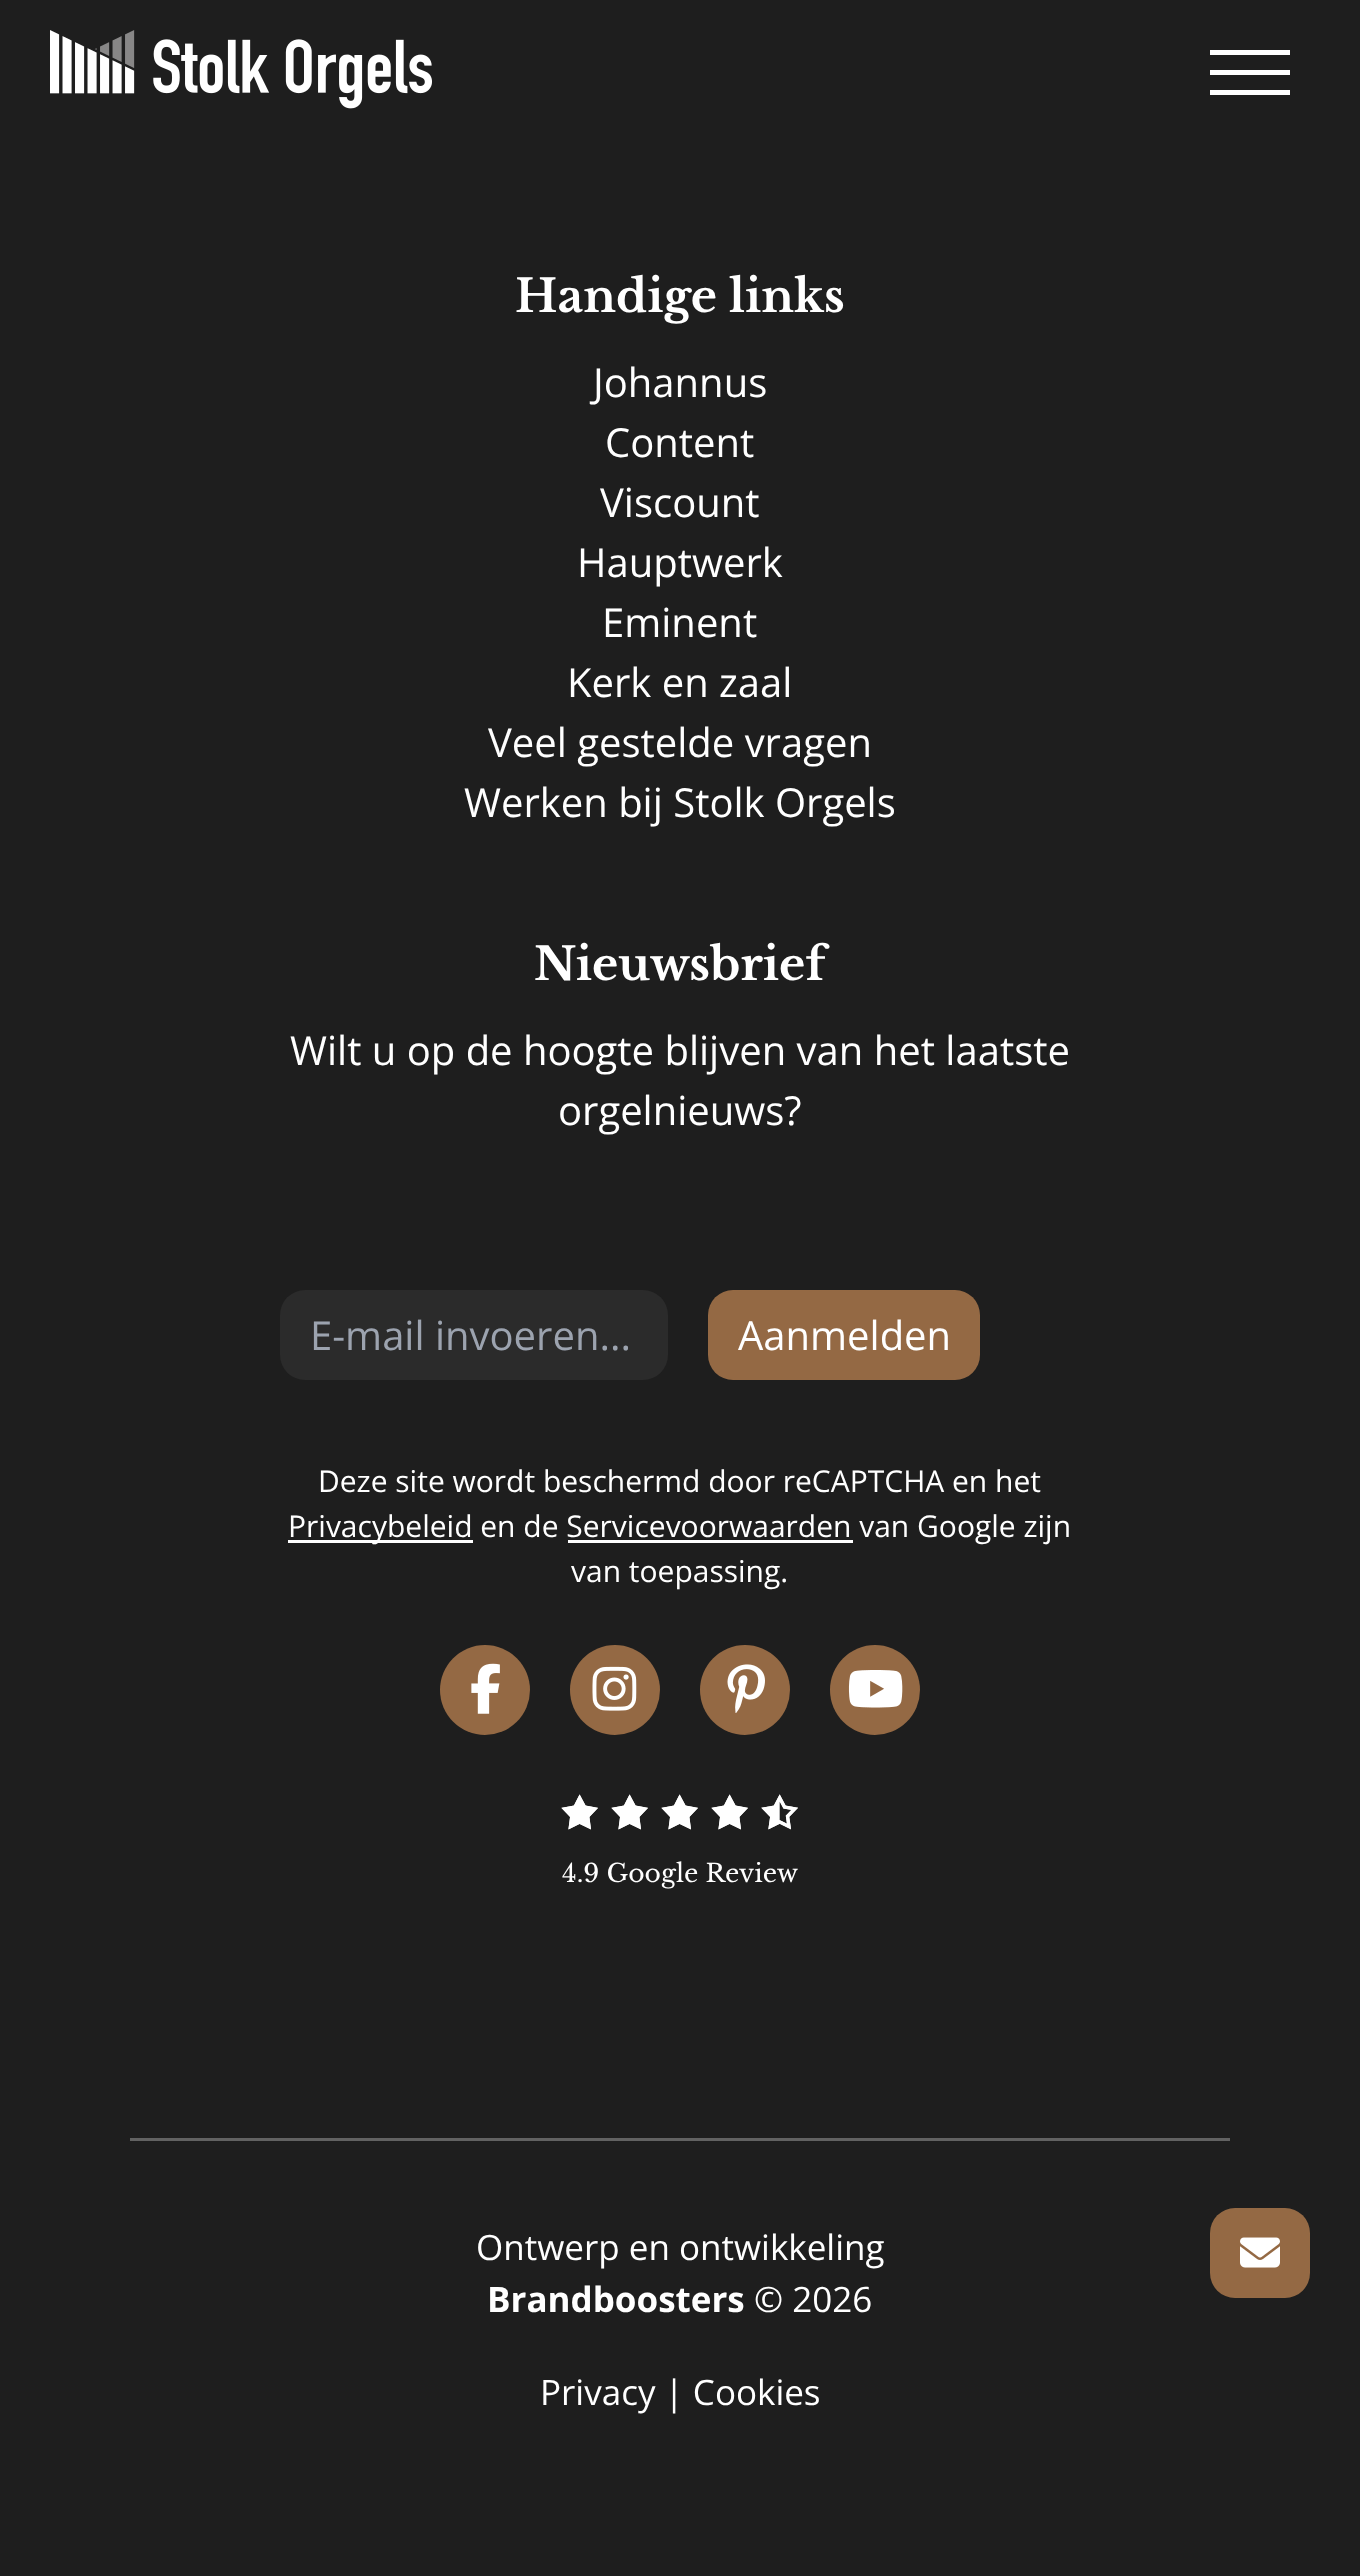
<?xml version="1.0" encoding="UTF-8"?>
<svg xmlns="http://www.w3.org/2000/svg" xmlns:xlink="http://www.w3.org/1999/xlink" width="1360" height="2576">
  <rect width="100%" height="100%" fill="#1e1e1e" />
  <image x="50" y="30" width="382" height="79" xlink:href="image1.png" />
  <rect x="1210" y="50" width="80" height="5" fill="#ffffff" />
  <rect x="1210" y="70" width="80" height="5" fill="#ffffff" />
  <rect x="1210" y="90" width="80" height="5" fill="#ffffff" />
  <rect x="280" y="1290" width="388" height="90" rx="25" fill="#2b2b2b" />
  <rect x="708" y="1290" width="272" height="90" rx="25" fill="#946944" />
  <rect x="288" y="1540" width="185" height="3" fill="#ffffff" />
  <rect x="568" y="1540" width="285" height="3" fill="#ffffff" />
  <circle cx="485" cy="1690" r="45" fill="#946944" />
  <image x="471" y="1663" width="29" height="51" xlink:href="image2.png" />
  <circle cx="615" cy="1690" r="45" fill="#946944" />
  <image x="592" y="1666" width="45" height="45" xlink:href="image3.png" />
  <circle cx="745" cy="1690" r="45" fill="#946944" />
  <image x="727" y="1664" width="38" height="49" xlink:href="image4.png" />
  <circle cx="875" cy="1690" r="45" fill="#946944" />
  <image x="848" y="1670" width="55" height="38" xlink:href="image5.png" />
  <image x="561" y="1794" width="37" height="36" xlink:href="image6.png" />
  <path d="M 579.5 1794.5 l 6 11 l -6 -11 l 6 11 l 12.5 2.5 l -8.5 9 l 1.5 12.5 l -11.5 -5.5 l -11 5.5 l 1.5 -12.5 l -8.5 -9 l 12.5 -2.5 z" fill="#ffffff" />
  <image x="611" y="1794" width="37" height="36" xlink:href="image6.png" />
  <path d="M 629.5 1794.5 l 6 11 l -6 -11 l 6 11 l 12.5 2.5 l -8.5 9 l 1.5 12.5 l -11.5 -5.5 l -11 5.5 l 1.5 -12.5 l -8.5 -9 l 12.5 -2.5 z" fill="#ffffff" />
  <image x="661" y="1794" width="37" height="36" xlink:href="image6.png" />
  <path d="M 679.5 1794.5 l 6 11 l -6 -11 l 6 11 l 12.5 2.5 l -8.5 9 l 1.5 12.5 l -11.5 -5.5 l -11 5.5 l 1.5 -12.5 l -8.5 -9 l 12.5 -2.5 z" fill="#ffffff" />
  <image x="711" y="1794" width="37" height="36" xlink:href="image6.png" />
  <path d="M 729.5 1794.5 l 6 11 l -6 -11 l 6 11 l 12.5 2.5 l -8.5 9 l 1.5 12.5 l -11.5 -5.5 l -11 5.5 l 1.5 -12.5 l -8.5 -9 l 12.5 -2.5 z" fill="#ffffff" />
  <image x="761" y="1794" width="37" height="36" xlink:href="image6.png" />
  <image x="761" y="1794" width="37" height="36" xlink:href="image7.png" />
  <rect x="130" y="2138" width="1100" height="3" fill="#626262" />
  <rect x="1210" y="2208" width="100" height="90" rx="25" fill="#946944" />
  <image x="1240" y="2237" width="40" height="31" xlink:href="image8.png" />
  <text x="515" y="312" style="font-family: Libre Baskerville; font-size: 45px; font-weight: bold; fill: #ffffff">Handige links</text>
  <text x="593" y="397" style="font-family: Open Sans; font-size: 40px; fill: #ffffff">Johannus</text>
  <text x="605" y="457" style="font-family: Open Sans; font-size: 40px; fill: #ffffff">Content</text>
  <text x="600" y="517" style="font-family: Open Sans; font-size: 40px; fill: #ffffff">Viscount</text>
  <text x="577" y="577" style="font-family: Open Sans; font-size: 40px; fill: #ffffff">Hauptwerk</text>
  <text x="602" y="637" style="font-family: Open Sans; font-size: 40px; fill: #ffffff">Eminent</text>
  <text x="567" y="697" style="font-family: Open Sans; font-size: 40px; fill: #ffffff">Kerk en zaal</text>
  <text x="488" y="757" style="font-family: Open Sans; font-size: 40px; fill: #ffffff">Veel gestelde vragen</text>
  <text x="464" y="817" style="font-family: Open Sans; font-size: 40px; fill: #ffffff">Werken bij Stolk Orgels</text>
  <text x="534" y="980" style="font-family: Libre Baskerville; font-size: 45px; font-weight: bold; fill: #ffffff">Nieuwsbrief</text>
  <text x="290" y="1065" style="font-family: Open Sans; font-size: 40px; fill: #ffffff">Wilt u op de hoogte blijven van het laatste</text>
  <text x="558" y="1125" style="font-family: Open Sans; font-size: 40px; fill: #ffffff">orgelnieuws?</text>
  <text x="310" y="1350" style="font-family: Open Sans; font-size: 40px; fill: #9ca3af">E-mail invoeren...</text>
  <text x="738" y="1350" style="font-family: Open Sans; font-size: 40px; fill: #ffffff">Aanmelden</text>
  <text x="318" y="1492" style="font-family: Open Sans; font-size: 30px; fill: #ffffff">Deze site wordt beschermd door reCAPTCHA en het</text>
  <text x="288" y="1537" style="font-family: Open Sans; font-size: 30px; fill: #ffffff">Privacybeleid en de Servicevoorwaarden van Google zijn</text>
  <text x="571" y="1582" style="font-family: Open Sans; font-size: 30px; fill: #ffffff">van toepassing.</text>
  <text x="562" y="1882" style="font-family: Libre Baskerville; font-size: 25px; fill: #ffffff">4.9 Google Review</text>
  <text x="476" y="2260" style="font-family: Open Sans; font-size: 35px; fill: #ffffff">Ontwerp en ontwikkeling</text>
  <text x="487" y="2312" style="font-family: Open Sans; font-size: 35px; font-weight: bold; fill: #ffffff">Brandboosters</text>
  <text x="754" y="2312" style="font-family: Open Sans; font-size: 35px; fill: #ffffff">© 2026</text>
  <text x="540" y="2405" style="font-family: Open Sans; font-size: 35px; fill: #ffffff">Privacy | Cookies</text>
</svg>
